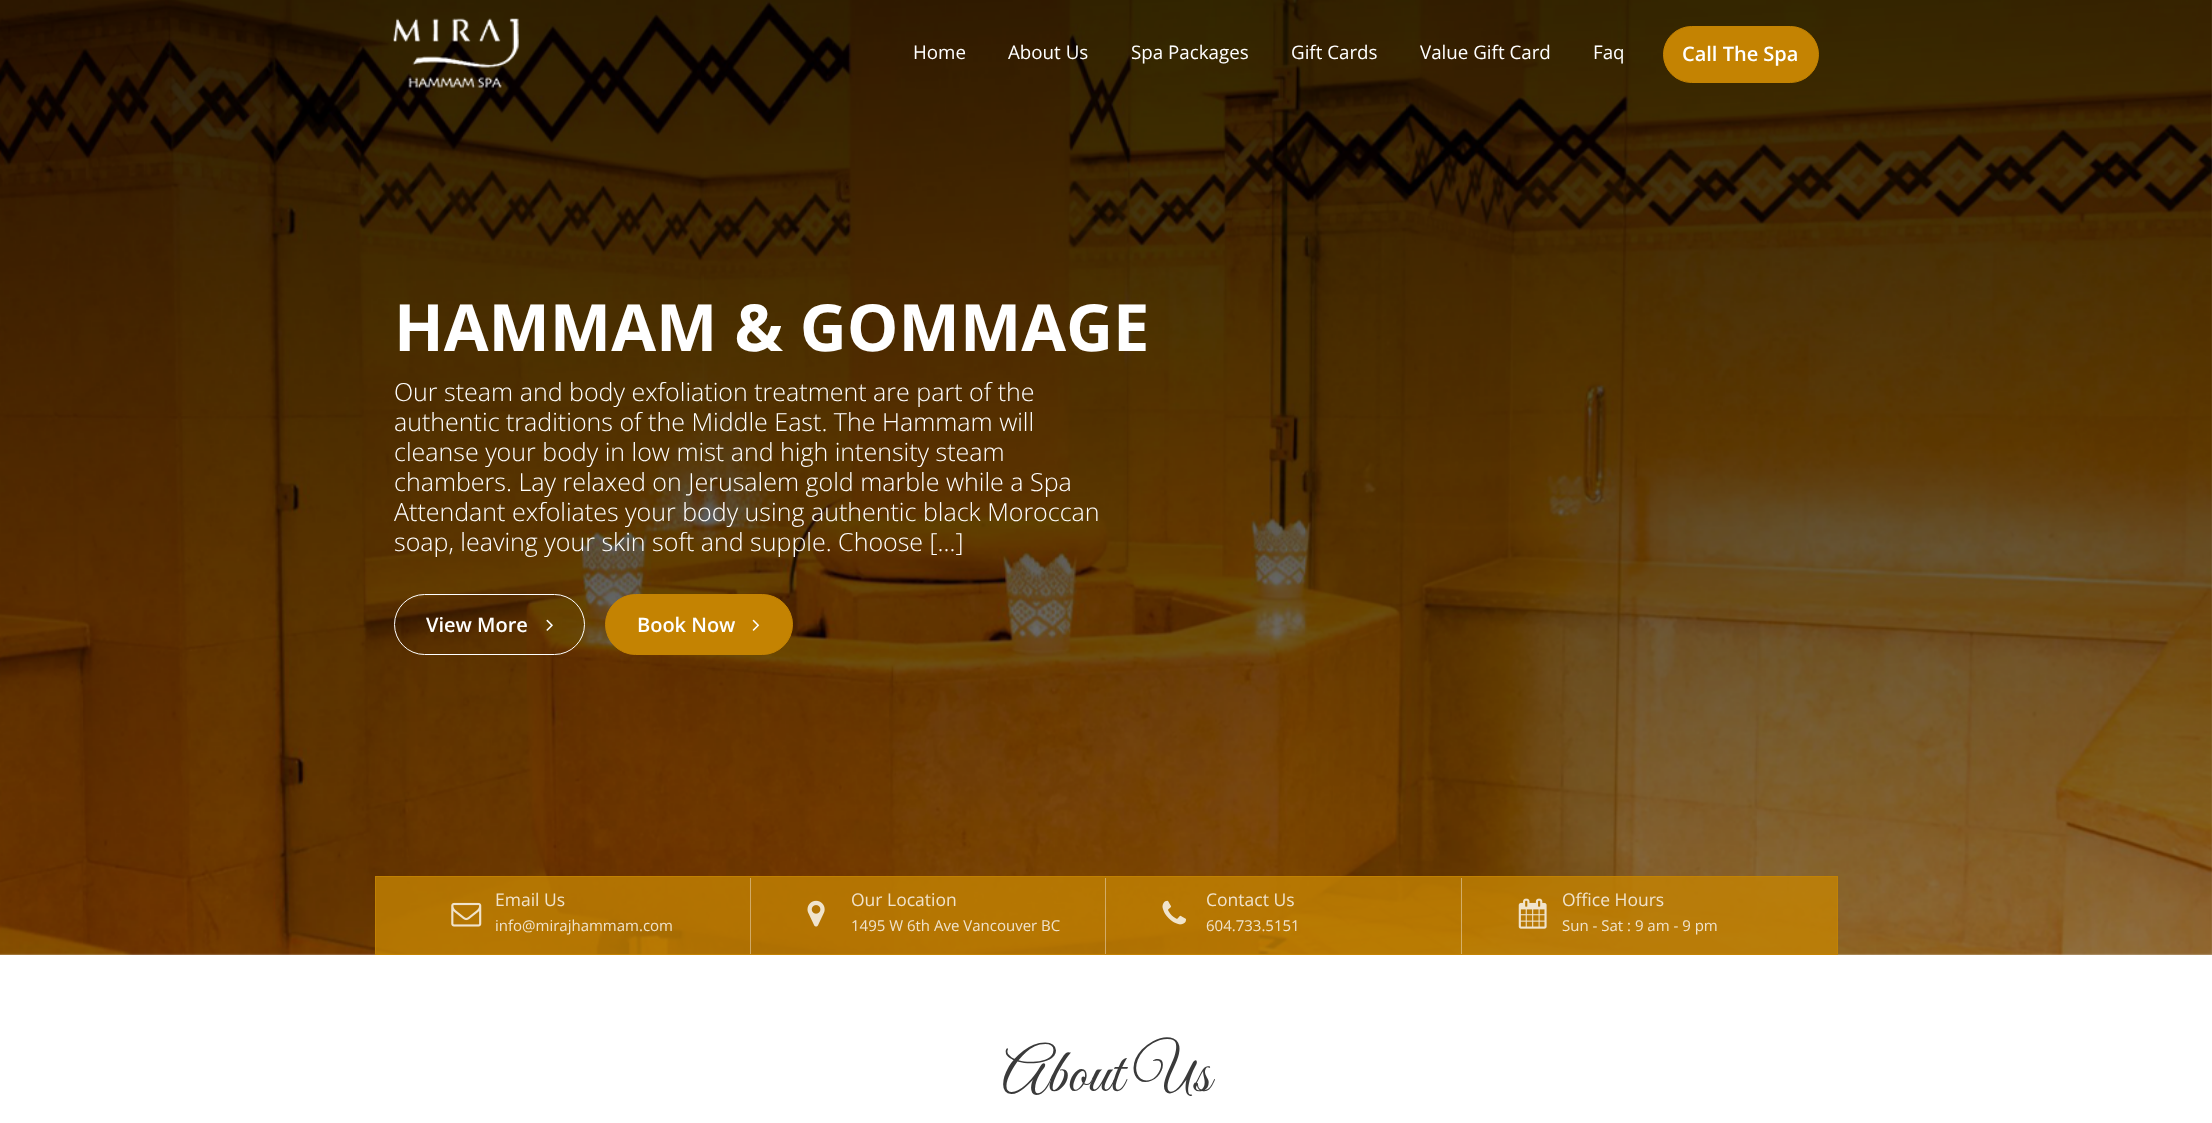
<?xml version="1.0" encoding="UTF-8"?>
<svg xmlns="http://www.w3.org/2000/svg" xmlns:xlink="http://www.w3.org/1999/xlink" width="2212" height="1123">
  <rect width="100%" height="100%" fill="#ffffff" />
  <image x="0" y="0" width="2212" height="955" xlink:href="image2.png" />
  <image x="393" y="18" width="126" height="70" xlink:href="image1.png" />
  <rect x="1663.5" y="26.5" width="155" height="56" rx="28" fill="#c48302" stroke="#c48302" />
  <rect x="394.5" y="594.5" width="190" height="60" rx="30" fill="none" stroke="#ffffff" />
  <image x="546" y="619" width="7" height="12" xlink:href="image3.png" />
  <rect x="605.5" y="594.5" width="187" height="60" rx="30" fill="#c48302" stroke="#c48302" />
  <image x="752" y="619" width="8" height="12" xlink:href="image4.png" />
  <rect x="375" y="876" width="1463" height="79" fill="#c48302" fill-opacity="0.8" />
  <rect x="375.5" y="876.5" width="1462" height="78" fill="none" stroke="#c48302" stroke-opacity="0.8" />
  <rect x="750" y="878" width="1" height="76" fill="#ffffff" fill-opacity="0.4" />
  <image x="451" y="902" width="31" height="25" xlink:href="image5.png" />
  <rect x="1105" y="878" width="1" height="76" fill="#ffffff" fill-opacity="0.4" />
  <image x="807" y="900" width="18" height="27" xlink:href="image6.png" />
  <rect x="1461" y="878" width="1" height="76" fill="#ffffff" fill-opacity="0.4" />
  <image x="1162" y="900" width="25" height="25" xlink:href="image7.png" />
  <image x="1518" y="898" width="29" height="31" xlink:href="image8.png" />
  <text x="913" y="59" style="font-family: Open Sans; font-size: 18.75px; fill: #ffffff">Home</text>
  <text x="1008" y="59" style="font-family: Open Sans; font-size: 18.75px; fill: #ffffff">About Us</text>
  <text x="1131" y="59" style="font-family: Open Sans; font-size: 18.75px; fill: #ffffff">Spa Packages</text>
  <text x="1291" y="59" style="font-family: Open Sans; font-size: 18.75px; fill: #ffffff">Gift Cards</text>
  <text x="1420" y="59" style="font-family: Open Sans; font-size: 18.75px; fill: #ffffff">Value Gift Card</text>
  <text x="1593" y="59" style="font-family: Open Sans; font-size: 18.75px; fill: #ffffff">Faq</text>
  <text x="1682" y="61" style="font-family: Open Sans; font-size: 20px; font-weight: 600; fill: #ffffff">Call The Spa</text>
  <text x="394" y="351" style="font-family: Open Sans; font-size: 65px; font-weight: bold; fill: #ffffff">HAMMAM &amp; GOMMAGE</text>
  <text x="394" y="401" style="font-family: Open Sans; font-size: 25px; font-weight: 300; fill: #ffffff">Our steam and body exfoliation treatment are part of the</text>
  <text x="394" y="431" style="font-family: Open Sans; font-size: 25px; font-weight: 300; fill: #ffffff">authentic traditions of the Middle East. The Hammam will</text>
  <text x="394" y="461" style="font-family: Open Sans; font-size: 25px; font-weight: 300; fill: #ffffff">cleanse your body in low mist and high intensity steam</text>
  <text x="394" y="491" style="font-family: Open Sans; font-size: 25px; font-weight: 300; fill: #ffffff">chambers. Lay relaxed on Jerusalem gold marble while a Spa</text>
  <text x="394" y="521" style="font-family: Open Sans; font-size: 25px; font-weight: 300; fill: #ffffff">Attendant exfoliates your body using authentic black Moroccan</text>
  <text x="394" y="551" style="font-family: Open Sans; font-size: 25px; font-weight: 300; fill: #ffffff">soap, leaving your skin soft and supple. Choose […]</text>
  <text x="426" y="632" style="font-family: Open Sans; font-size: 20px; font-weight: 600; fill: #ffffff">View More</text>
  <text x="637" y="632" style="font-family: Open Sans; font-size: 20px; font-weight: 600; fill: #ffffff">Book Now</text>
  <text x="495" y="906" style="font-family: Open Sans; font-size: 17.5px; fill: #f0e3cc">Email Us</text>
  <text x="495" y="931" style="font-family: Open Sans; font-size: 15px; fill: #f0e3cc">info@mirajhammam.com</text>
  <text x="851" y="906" style="font-family: Open Sans; font-size: 17.5px; fill: #f0e3cc">Our Location</text>
  <text x="851" y="931" style="font-family: Open Sans; font-size: 15px; fill: #f0e3cc">1495 W 6th Ave Vancouver BC</text>
  <text x="1206" y="906" style="font-family: Open Sans; font-size: 17.5px; fill: #f0e3cc">Contact Us</text>
  <text x="1206" y="931" style="font-family: Open Sans; font-size: 15px; fill: #f0e3cc">604.733.5151</text>
  <text x="1562" y="906" style="font-family: Open Sans; font-size: 17.5px; fill: #f0e3cc">Office Hours</text>
  <text x="1562" y="931" style="font-family: Open Sans; font-size: 15px; fill: #f0e3cc">Sun - Sat : 9 am - 9 pm</text>
  <text x="1002" y="1091" style="font-family: Great Vibes; font-size: 62.5px; fill: #3a3a3a">About Us</text>
</svg>
